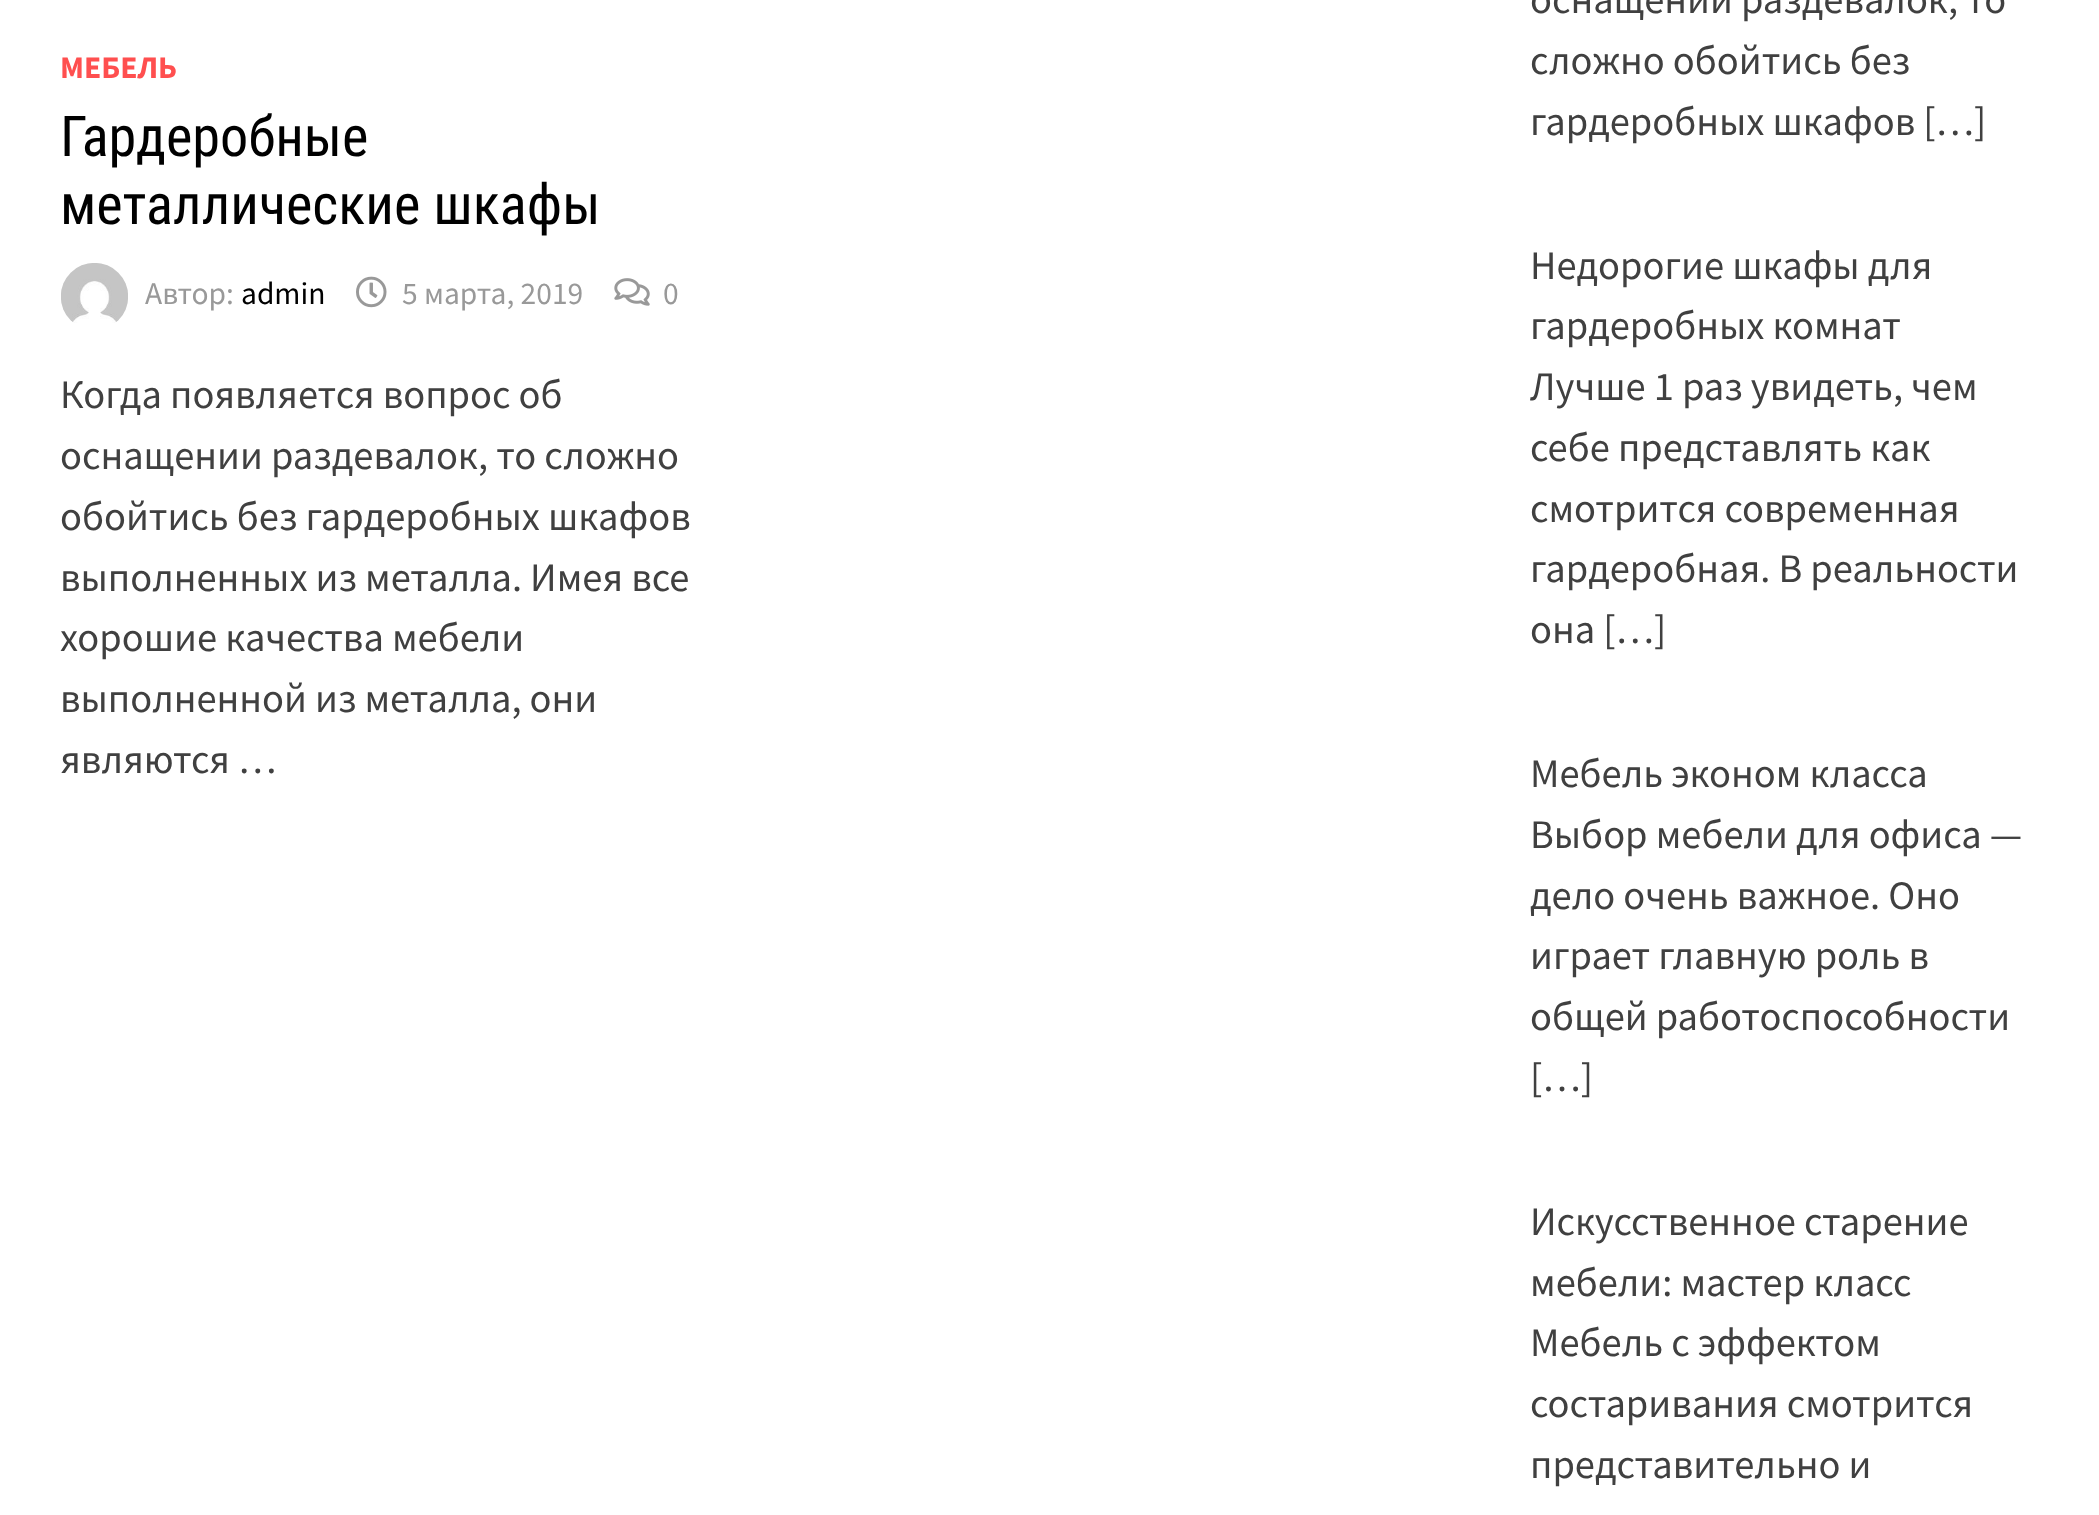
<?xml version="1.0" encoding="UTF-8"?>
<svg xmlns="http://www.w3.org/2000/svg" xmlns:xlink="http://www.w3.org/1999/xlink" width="2099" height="1515">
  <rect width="100%" height="100%" fill="#ffffff" />
  <image x="61" y="263" width="67" height="60" xlink:href="image1.png" />
  <image x="356" y="276" width="31" height="32" xlink:href="image2.png" />
  <image x="614" y="278" width="36" height="28" xlink:href="image3.png" />
  <text x="60" y="78" style="font-family: Source Sans Pro; font-size: 31.5px; font-weight: bold; fill: #ff4f4f">МЕБЕЛЬ</text>
  <text x="60" y="156" style="font-family: Roboto Condensed; font-size: 56.25px; fill: #000000">Гардеробные</text>
  <text x="60" y="224" style="font-family: Roboto Condensed; font-size: 56.25px; fill: #000000">металлические шкафы</text>
  <text x="145" y="304" style="font-family: Source Sans Pro; font-size: 31.5px; fill: #999999">Автор:</text>
  <text x="241" y="304" style="font-family: Source Sans Pro; font-size: 31.5px; fill: #000000">admin</text>
  <text x="402" y="304" style="font-family: Source Sans Pro; font-size: 31.5px; fill: #999999">5 марта, 2019</text>
  <text x="663" y="304" style="font-family: Source Sans Pro; font-size: 31.5px; fill: #999999">0</text>
  <text x="60" y="408" style="font-family: Source Sans Pro; font-size: 40.5px; fill: #404040">Когда появляется вопрос об</text>
  <text x="60" y="469" style="font-family: Source Sans Pro; font-size: 40.5px; fill: #404040">оснащении раздевалок, то сложно</text>
  <text x="60" y="530" style="font-family: Source Sans Pro; font-size: 40.5px; fill: #404040">обойтись без гардеробных шкафов</text>
  <text x="60" y="591" style="font-family: Source Sans Pro; font-size: 40.5px; fill: #404040">выполненных из металла. Имея все</text>
  <text x="60" y="651" style="font-family: Source Sans Pro; font-size: 40.5px; fill: #404040">хорошие качества мебели</text>
  <text x="60" y="712" style="font-family: Source Sans Pro; font-size: 40.5px; fill: #404040">выполненной из металла, они</text>
  <text x="60" y="773" style="font-family: Source Sans Pro; font-size: 40.5px; fill: #404040">являются …</text>
  <text x="1530" y="13" style="font-family: Source Sans Pro; font-size: 40.5px; fill: #404040">оснащении раздевалок, то</text>
  <text x="1530" y="74" style="font-family: Source Sans Pro; font-size: 40.5px; fill: #404040">сложно обойтись без</text>
  <text x="1530" y="135" style="font-family: Source Sans Pro; font-size: 40.5px; fill: #404040">гардеробных шкафов […]</text>
  <text x="1530" y="279" style="font-family: Source Sans Pro; font-size: 40.5px; fill: #404040">Недорогие шкафы для</text>
  <text x="1530" y="339" style="font-family: Source Sans Pro; font-size: 40.5px; fill: #404040">гардеробных комнат</text>
  <text x="1530" y="400" style="font-family: Source Sans Pro; font-size: 40.5px; fill: #404040">Лучше 1 раз увидеть, чем</text>
  <text x="1530" y="461" style="font-family: Source Sans Pro; font-size: 40.5px; fill: #404040">себе представлять как</text>
  <text x="1530" y="522" style="font-family: Source Sans Pro; font-size: 40.5px; fill: #404040">смотрится современная</text>
  <text x="1530" y="582" style="font-family: Source Sans Pro; font-size: 40.5px; fill: #404040">гардеробная. В реальности</text>
  <text x="1530" y="643" style="font-family: Source Sans Pro; font-size: 40.5px; fill: #404040">она […]</text>
  <text x="1530" y="787" style="font-family: Source Sans Pro; font-size: 40.5px; fill: #404040">Мебель эконом класса</text>
  <text x="1530" y="848" style="font-family: Source Sans Pro; font-size: 40.5px; fill: #404040">Выбор мебели для офиса —</text>
  <text x="1530" y="909" style="font-family: Source Sans Pro; font-size: 40.5px; fill: #404040">дело очень важное. Оно</text>
  <text x="1530" y="969" style="font-family: Source Sans Pro; font-size: 40.5px; fill: #404040">играет главную роль в</text>
  <text x="1530" y="1030" style="font-family: Source Sans Pro; font-size: 40.5px; fill: #404040">общей работоспособности</text>
  <text x="1530" y="1091" style="font-family: Source Sans Pro; font-size: 40.5px; fill: #404040">[…]</text>
  <text x="1530" y="1235" style="font-family: Source Sans Pro; font-size: 40.5px; fill: #404040">Искусственное старение</text>
  <text x="1530" y="1296" style="font-family: Source Sans Pro; font-size: 40.5px; fill: #404040">мебели: мастер класс</text>
  <text x="1530" y="1356" style="font-family: Source Sans Pro; font-size: 40.5px; fill: #404040">Мебель с эффектом</text>
  <text x="1530" y="1417" style="font-family: Source Sans Pro; font-size: 40.5px; fill: #404040">состаривания смотрится</text>
  <text x="1530" y="1478" style="font-family: Source Sans Pro; font-size: 40.5px; fill: #404040">представительно и</text>
</svg>
